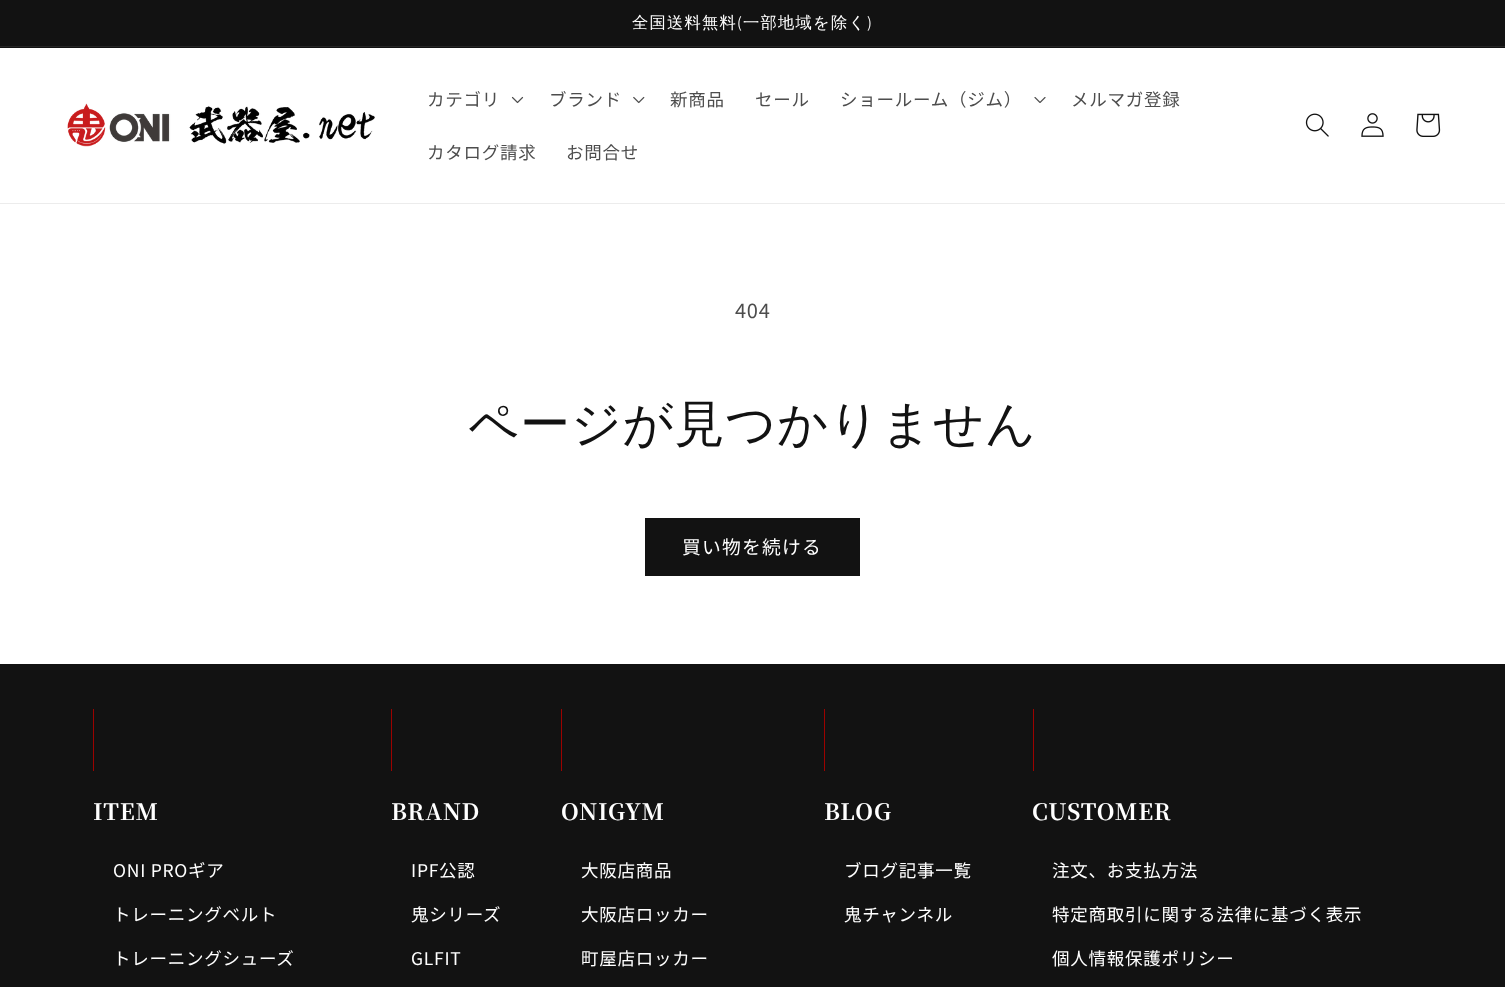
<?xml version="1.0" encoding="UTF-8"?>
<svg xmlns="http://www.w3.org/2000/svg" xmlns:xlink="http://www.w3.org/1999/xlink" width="1505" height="987">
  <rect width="100%" height="100%" fill="#ffffff" />
  <rect width="1505" height="48" fill="#121212" />
  <rect y="46" width="1505" height="1" fill="#252525" />
  <rect y="203" width="1505" height="1" fill="#ececec" />
  <image x="67" y="103" width="308" height="44" xlink:href="image1.png" />
  <image x="511" y="96" width="13" height="8" xlink:href="image2.png" />
  <image x="633" y="96" width="12" height="8" xlink:href="image3.png" />
  <image x="1034" y="97" width="12" height="6" xlink:href="image4.png" />
  <image x="1305" y="113" width="24" height="24" xlink:href="image5.png" />
  <image x="1361" y="113" width="23" height="24" xlink:href="image6.png" />
  <image x="1416" y="113" width="25" height="24" xlink:href="image7.png" />
  <rect x="645" y="518" width="215" height="58" fill="#121212" />
  <rect y="664" width="1505" height="323" fill="#121212" />
  <rect x="93" y="709" width="1" height="62" fill="#9c0200" />
  <rect x="391" y="709" width="1" height="62" fill="#9c0200" />
  <rect x="561" y="709" width="1" height="62" fill="#9c0200" />
  <rect x="824" y="709" width="1" height="62" fill="#9c0200" />
  <rect x="1033" y="709" width="1" height="62" fill="#9c0200" />
  <text x="632" y="28" style="font-family: WenQuanYi Zen Hei; font-size: 16.25px; font-weight: 500; letter-spacing: 1.25px; fill: #ffffff">全国送料無料 一部地域を除く</text>
  <text x="737" y="28" style="font-family: Assistant; font-size: 16.25px; letter-spacing: 1.25px; fill: #ffffff">(</text>
  <text x="867" y="28" style="font-family: Assistant; font-size: 16.25px; letter-spacing: 1.25px; fill: #ffffff">)</text>
  <text x="427" y="106" style="font-family: Noto Sans JP; font-size: 17.5px; letter-spacing: 0.75px; fill: #4d4d4d">カテゴリ</text>
  <text x="549" y="106" style="font-family: Noto Sans JP; font-size: 17.5px; letter-spacing: 0.75px; fill: #4d4d4d">ブランド</text>
  <text x="670" y="106" style="font-family: Noto Sans JP; font-size: 17.5px; letter-spacing: 0.75px; fill: #4d4d4d">新商品</text>
  <text x="755" y="106" style="font-family: Noto Sans JP; font-size: 17.5px; letter-spacing: 0.75px; fill: #4d4d4d">セール</text>
  <text x="840" y="106" style="font-family: Noto Sans JP; font-size: 17.5px; letter-spacing: 0.75px; fill: #4d4d4d">ショールーム（ジム）</text>
  <text x="1071" y="106" style="font-family: Noto Sans JP; font-size: 17.5px; letter-spacing: 0.75px; fill: #4d4d4d">メルマガ登録</text>
  <text x="427" y="159" style="font-family: Noto Sans JP; font-size: 17.5px; letter-spacing: 0.75px; fill: #4d4d4d">カタログ請求</text>
  <text x="566" y="159" style="font-family: Noto Sans JP; font-size: 17.5px; letter-spacing: 0.75px; fill: #4d4d4d">お問合せ</text>
  <text x="735" y="318" style="font-family: Noto Sans JP; font-size: 20px; letter-spacing: 0.75px; fill: #4d4d4d">404</text>
  <text x="468" y="441" style="font-family: WenQuanYi Zen Hei; font-size: 50px; font-weight: 500; letter-spacing: 0.75px; fill: #121212">ページが見つかりません</text>
  <text x="682" y="554" style="font-family: Noto Sans JP; font-size: 18.75px; letter-spacing: 1.25px; fill: #ffffff">買い物を続ける</text>
  <text x="93" y="820" style="font-family: Noto Serif JP; font-size: 22.5px; font-weight: bold; letter-spacing: 0.75px; fill: #ffffff">ITEM</text>
  <text x="113" y="877" style="font-family: Noto Sans JP; font-size: 17.5px; letter-spacing: 0.75px; fill: #ffffff">ONI PROギア</text>
  <text x="113" y="921" style="font-family: Noto Sans JP; font-size: 17.5px; letter-spacing: 0.75px; fill: #ffffff">トレーニングベルト</text>
  <text x="113" y="965" style="font-family: Noto Sans JP; font-size: 17.5px; letter-spacing: 0.75px; fill: #ffffff">トレーニングシューズ</text>
  <text x="391" y="820" style="font-family: Noto Serif JP; font-size: 22.5px; font-weight: bold; letter-spacing: 0.75px; fill: #ffffff">BRAND</text>
  <text x="411" y="877" style="font-family: Noto Sans JP; font-size: 17.5px; letter-spacing: 0.75px; fill: #ffffff">IPF公認</text>
  <text x="411" y="921" style="font-family: Noto Sans JP; font-size: 17.5px; letter-spacing: 0.75px; fill: #ffffff">鬼シリーズ</text>
  <text x="411" y="965" style="font-family: Noto Sans JP; font-size: 17.5px; letter-spacing: 0.75px; fill: #ffffff">GLFIT</text>
  <text x="561" y="820" style="font-family: Noto Serif JP; font-size: 22.5px; font-weight: bold; letter-spacing: 0.75px; fill: #ffffff">ONIGYM</text>
  <text x="581" y="877" style="font-family: Noto Sans JP; font-size: 17.5px; letter-spacing: 0.75px; fill: #ffffff">大阪店商品</text>
  <text x="581" y="921" style="font-family: Noto Sans JP; font-size: 17.5px; letter-spacing: 0.75px; fill: #ffffff">大阪店ロッカー</text>
  <text x="581" y="965" style="font-family: Noto Sans JP; font-size: 17.5px; letter-spacing: 0.75px; fill: #ffffff">町屋店ロッカー</text>
  <text x="824" y="820" style="font-family: Noto Serif JP; font-size: 22.5px; font-weight: bold; letter-spacing: 0.75px; fill: #ffffff">BLOG</text>
  <text x="844" y="877" style="font-family: Noto Sans JP; font-size: 17.5px; letter-spacing: 0.75px; fill: #ffffff">ブログ記事一覧</text>
  <text x="844" y="921" style="font-family: Noto Sans JP; font-size: 17.5px; letter-spacing: 0.75px; fill: #ffffff">鬼チャンネル</text>
  <text x="1032" y="820" style="font-family: Noto Serif JP; font-size: 22.5px; font-weight: bold; letter-spacing: 0.75px; fill: #ffffff">CUSTOMER</text>
  <text x="1052" y="877" style="font-family: Noto Sans JP; font-size: 17.5px; letter-spacing: 0.75px; fill: #ffffff">注文、お支払方法</text>
  <text x="1052" y="921" style="font-family: Noto Sans JP; font-size: 17.5px; letter-spacing: 0.75px; fill: #ffffff">特定商取引に関する法律に基づく表示</text>
  <text x="1052" y="965" style="font-family: Noto Sans JP; font-size: 17.5px; letter-spacing: 0.75px; fill: #ffffff">個人情報保護ポリシー</text>
</svg>
